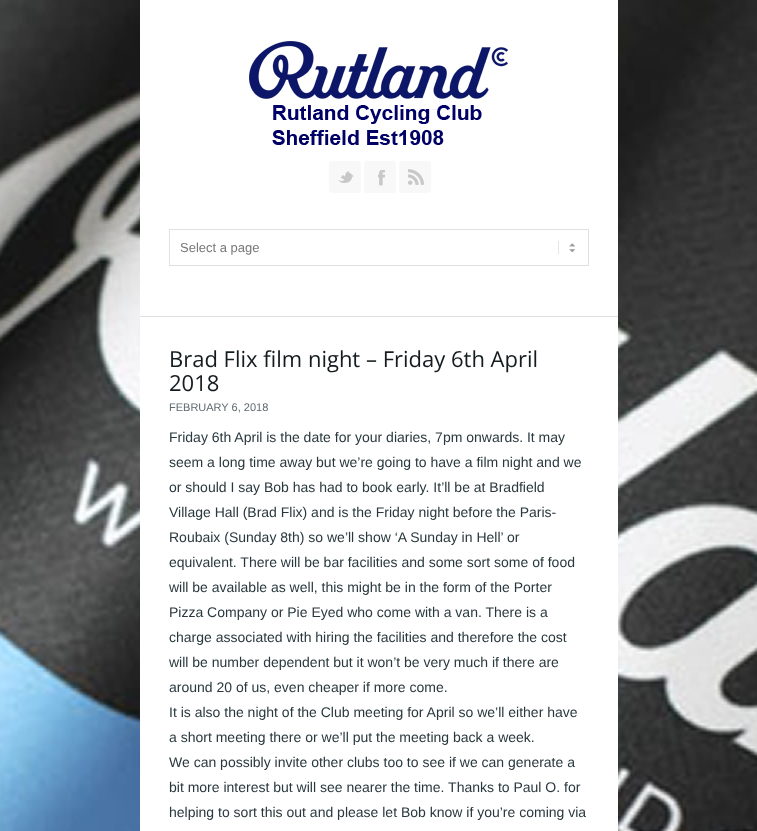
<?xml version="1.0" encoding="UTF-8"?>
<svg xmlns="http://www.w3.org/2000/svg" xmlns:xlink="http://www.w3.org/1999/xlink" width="757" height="831">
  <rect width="100%" height="100%" fill="#ffffff" />
  <image x="0" y="0" width="757" height="831" xlink:href="image1.png" />
  <rect x="140" width="478" height="831" fill="#ffffff" />
  <image x="249" y="41" width="259" height="109" xlink:href="image2.png" />
  <rect x="329" y="161" width="32" height="32" rx="3" fill="#f8f8f8" />
  <image x="338" y="171" width="16" height="12" xlink:href="image3.png" />
  <rect x="364" y="161" width="32" height="32" rx="3" fill="#f8f8f8" />
  <image x="378" y="170" width="7" height="16" xlink:href="image4.png" />
  <rect x="399" y="161" width="32" height="32" rx="3" fill="#f8f8f8" />
  <image x="408" y="169" width="16" height="16" xlink:href="image5.png" />
  <image x="558" y="241" width="18" height="13" xlink:href="image6.png" />
  <rect x="169.5" y="229.5" width="419" height="36" fill="none" stroke="#e1e1e1" />
  <rect x="140" y="316" width="478" height="1" fill="#e1e1e1" />
  <text x="180" y="252" style="font-family: Liberation Sans; font-size: 13px; fill: #777777">Select a page</text>
  <text x="169" y="367" style="font-family: Open Sans; font-size: 22px; fill: #151c1f">Brad Flix film night – Friday 6th April</text>
  <text x="169" y="391" style="font-family: Open Sans; font-size: 22px; fill: #151c1f">2018</text>
  <text x="169" y="411" style="font-family: Liberation Sans; font-size: 11px; fill: #5f6a6e">FEBRUARY 6, 2018</text>
  <text x="169" y="442" style="font-family: Liberation Sans; font-size: 14px; fill: #29383d">Friday 6th April is the date for your diaries, 7pm onwards. It may</text>
  <text x="169" y="467" style="font-family: Liberation Sans; font-size: 14px; fill: #29383d">seem a long time away but we’re going to have a film night and we</text>
  <text x="169" y="492" style="font-family: Liberation Sans; font-size: 14px; fill: #29383d">or should I say Bob has had to book early. It’ll be at Bradfield</text>
  <text x="169" y="517" style="font-family: Liberation Sans; font-size: 14px; fill: #29383d">Village Hall (Brad Flix) and is the Friday night before the Paris-</text>
  <text x="169" y="542" style="font-family: Liberation Sans; font-size: 14px; fill: #29383d">Roubaix (Sunday 8th) so we’ll show ‘A Sunday in Hell’ or</text>
  <text x="169" y="567" style="font-family: Liberation Sans; font-size: 14px; fill: #29383d">equivalent. There will be bar facilities and some sort some of food</text>
  <text x="169" y="592" style="font-family: Liberation Sans; font-size: 14px; fill: #29383d">will be available as well, this might be in the form of the Porter</text>
  <text x="169" y="617" style="font-family: Liberation Sans; font-size: 14px; fill: #29383d">Pizza Company or Pie Eyed who come with a van. There is a</text>
  <text x="169" y="642" style="font-family: Liberation Sans; font-size: 14px; fill: #29383d">charge associated with hiring the facilities and therefore the cost</text>
  <text x="169" y="667" style="font-family: Liberation Sans; font-size: 14px; fill: #29383d">will be number dependent but it won’t be very much if there are</text>
  <text x="169" y="692" style="font-family: Liberation Sans; font-size: 14px; fill: #29383d">around 20 of us, even cheaper if more come.</text>
  <text x="169" y="717" style="font-family: Liberation Sans; font-size: 14px; fill: #29383d">It is also the night of the Club meeting for April so we’ll either have</text>
  <text x="169" y="742" style="font-family: Liberation Sans; font-size: 14px; fill: #29383d">a short meeting there or we’ll put the meeting back a week.</text>
  <text x="169" y="767" style="font-family: Liberation Sans; font-size: 14px; fill: #29383d">We can possibly invite other clubs too to see if we can generate a</text>
  <text x="169" y="792" style="font-family: Liberation Sans; font-size: 14px; fill: #29383d">bit more interest but will see nearer the time. Thanks to Paul O. for</text>
  <text x="169" y="817" style="font-family: Liberation Sans; font-size: 14px; fill: #29383d">helping to sort this out and please let Bob know if you’re coming via</text>
</svg>
